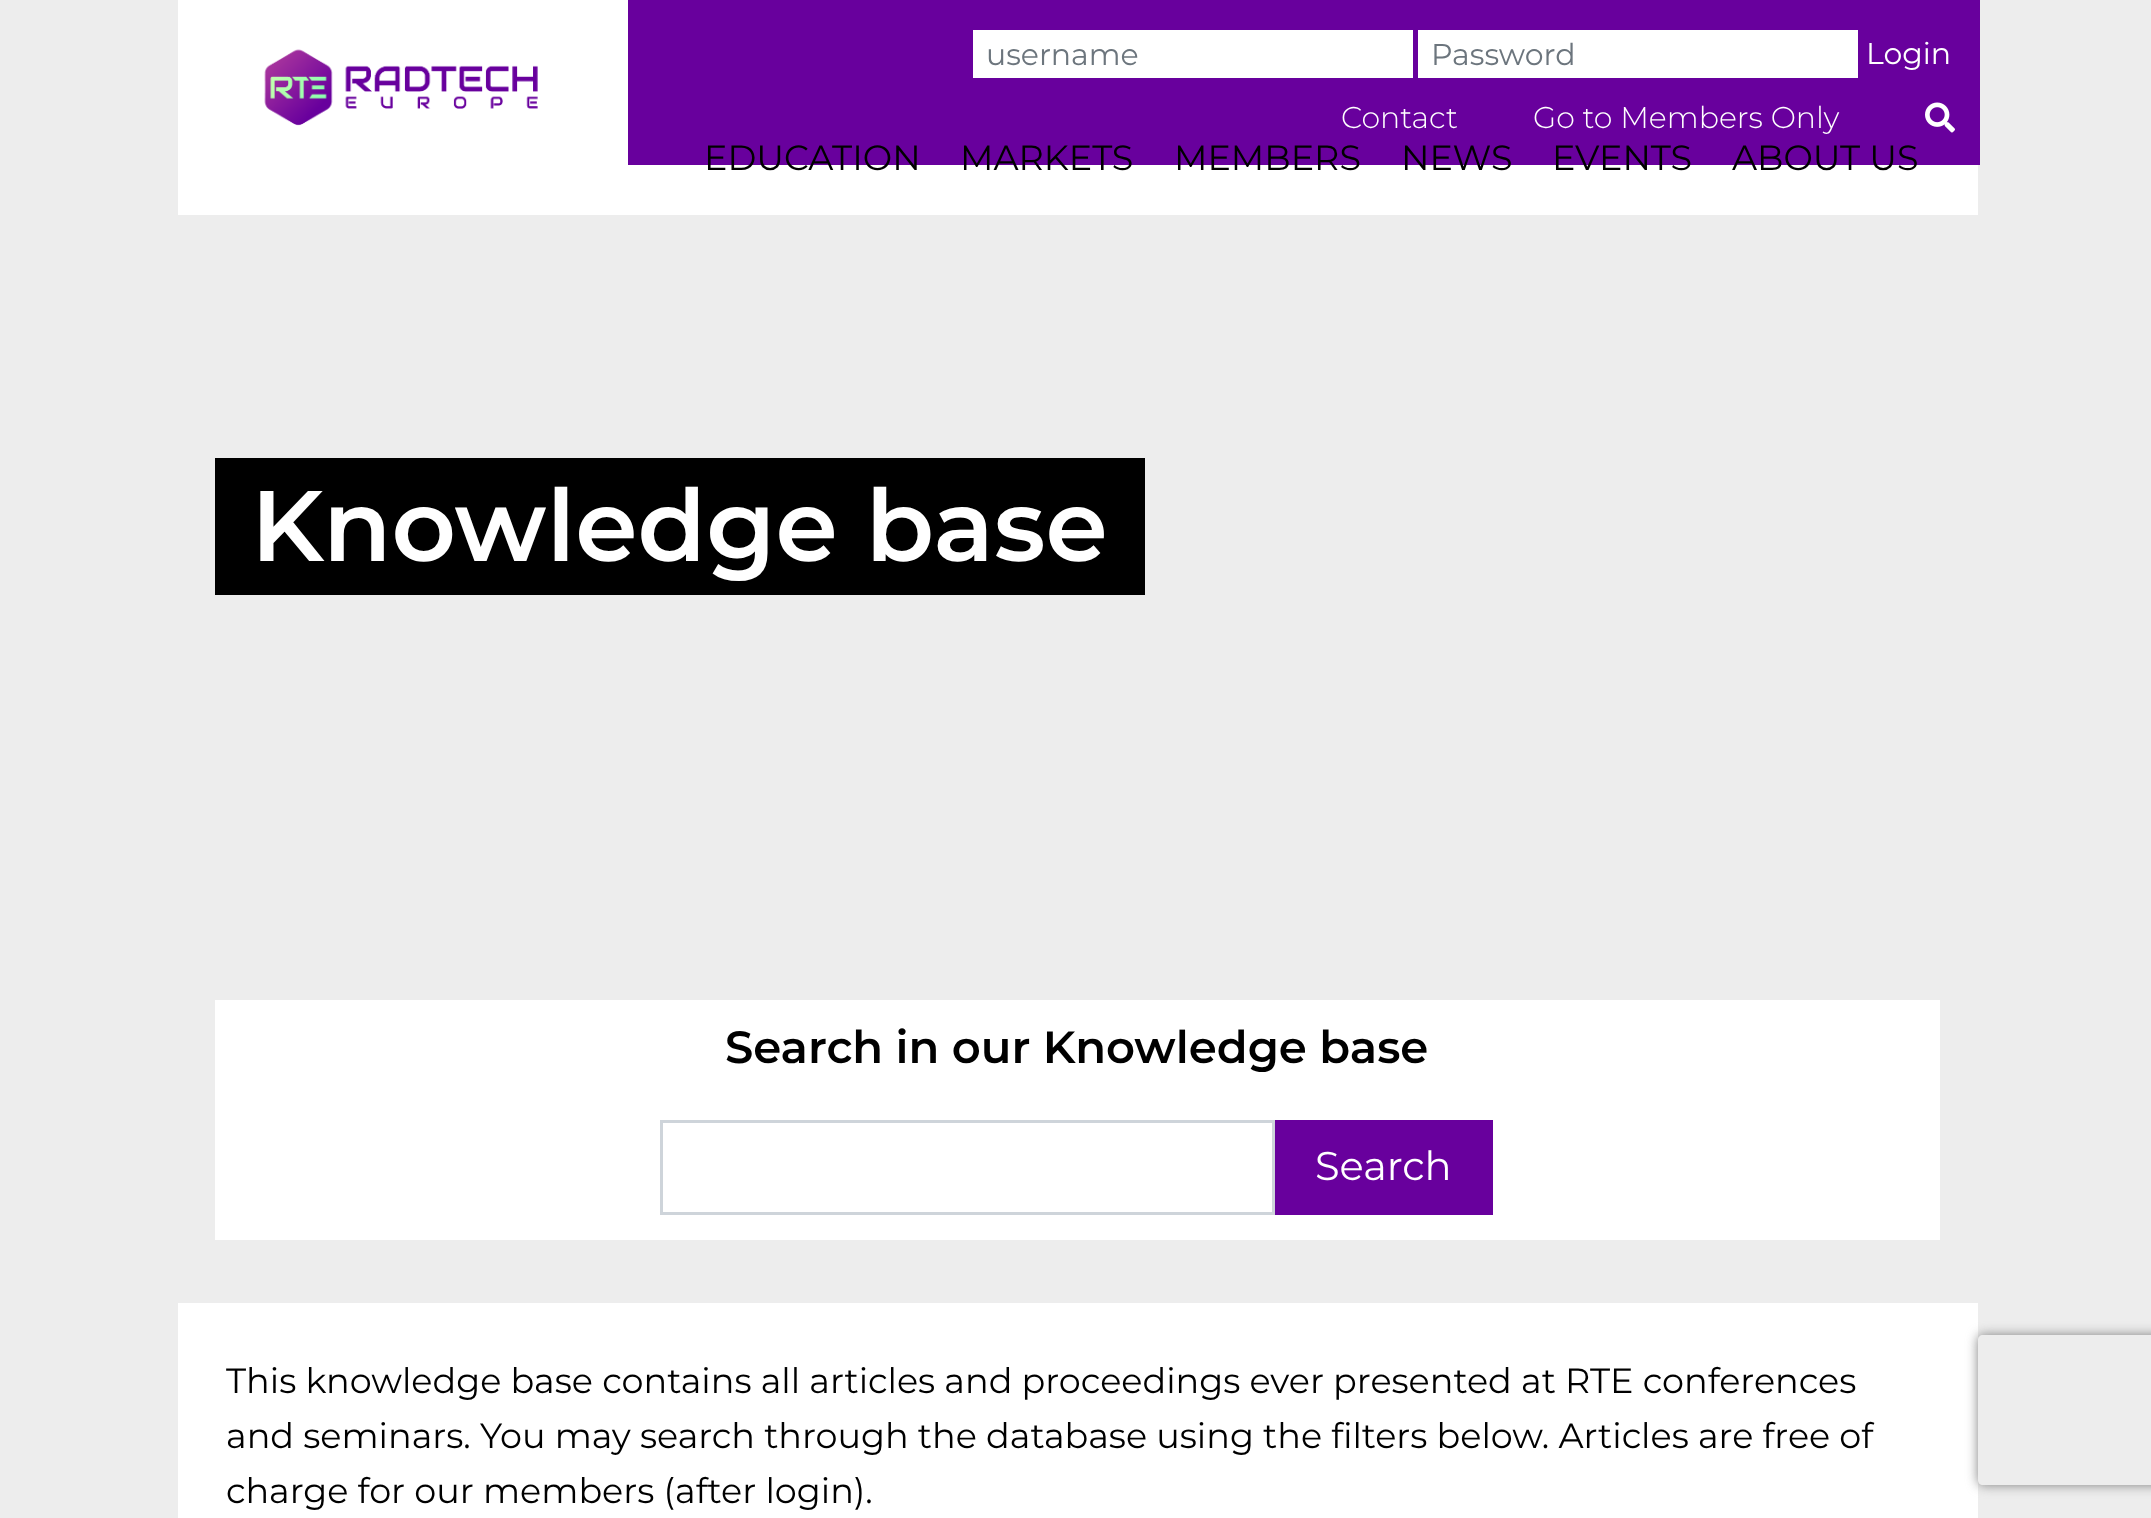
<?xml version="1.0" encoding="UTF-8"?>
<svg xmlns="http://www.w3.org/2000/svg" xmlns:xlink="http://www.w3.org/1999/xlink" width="2151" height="1518">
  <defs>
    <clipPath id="clip1"><path d="M 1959 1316 h 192 v 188 h -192 z m 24 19 h 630 c 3 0 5 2 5 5 v 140 c 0 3 -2 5 -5 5 h -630 c -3 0 -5 -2 -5 -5 v -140 c 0 -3 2 -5 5 -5 z" clip-rule="evenodd" /></clipPath>
  </defs>
  <rect width="100%" height="100%" fill="#ededed" />
  <rect x="178" width="1800" height="215" fill="#ffffff" />
  <image x="264" y="49" width="274" height="77" xlink:href="image1.png" />
  <rect x="628" width="1352" height="165" fill="#68009d" />
  <rect x="973" y="30" width="440" height="48" fill="#ffffff" />
  <rect x="1418" y="30" width="440" height="48" fill="#ffffff" />
  <image x="1925" y="102" width="30" height="31" xlink:href="image2.png" />
  <rect x="215" y="458" width="930" height="137" fill="#000000" />
  <rect x="215" y="1000" width="1725" height="240" fill="#ffffff" />
  <rect x="661.5" y="1121.5" width="612" height="92" fill="none" stroke="#ced4da" stroke-width="3" />
  <rect x="1275" y="1120" width="218" height="95" fill="#68009d" />
  <rect x="178" y="1303" width="1800" height="215" fill="#ffffff" />
  <g clip-path="url(#clip1)">
    <rect x="1978" y="1335" width="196" height="150" rx="5" fill="#808080" filter="blur(6px)" />
  </g>
  <text x="986" y="65" style="font-family: Montserrat; font-size: 30px; fill: #6c757d">username</text>
  <text x="1431" y="65" style="font-family: Montserrat; font-size: 30px; fill: #6c757d">Password</text>
  <text x="1866" y="64" style="font-family: Montserrat; font-size: 30px; fill: #ffffff">Login</text>
  <text x="1341" y="128" style="font-family: Montserrat; font-size: 30px; font-weight: 300; fill: #ffffff">Contact</text>
  <text x="1533" y="128" style="font-family: Montserrat; font-size: 30px; font-weight: 300; fill: #ffffff">Go to Members Only</text>
  <text x="704" y="170" style="font-family: Montserrat; font-size: 35px; fill: #000000">EDUCATION</text>
  <text x="960" y="170" style="font-family: Montserrat; font-size: 35px; fill: #000000">MARKETS</text>
  <text x="1174" y="170" style="font-family: Montserrat; font-size: 35px; fill: #000000">MEMBERS</text>
  <text x="1401" y="170" style="font-family: Montserrat; font-size: 35px; fill: #000000">NEWS</text>
  <text x="1552" y="170" style="font-family: Montserrat; font-size: 35px; fill: #000000">EVENTS</text>
  <text x="1732" y="170" style="font-family: Montserrat; font-size: 35px; fill: #000000">ABOUT US</text>
  <text x="251" y="561" style="font-family: Montserrat; font-size: 100px; font-weight: 600; fill: #ffffff">Knowledge base</text>
  <text x="725" y="1063" style="font-family: Montserrat; font-size: 45px; font-weight: 600; fill: #000000">Search in our Knowledge base</text>
  <text x="1315" y="1180" style="font-family: Montserrat; font-size: 40px; fill: #ffffff">Search</text>
  <text x="226" y="1393" style="font-family: Montserrat; font-size: 35px; fill: #000000">This knowledge base contains all articles and proceedings ever presented at RTE conferences</text>
  <text x="226" y="1448" style="font-family: Montserrat; font-size: 35px; fill: #000000">and seminars. You may search through the database using the filters below. Articles are free of</text>
  <text x="226" y="1503" style="font-family: Montserrat; font-size: 35px; fill: #000000">charge for our members (after login).</text>
</svg>
